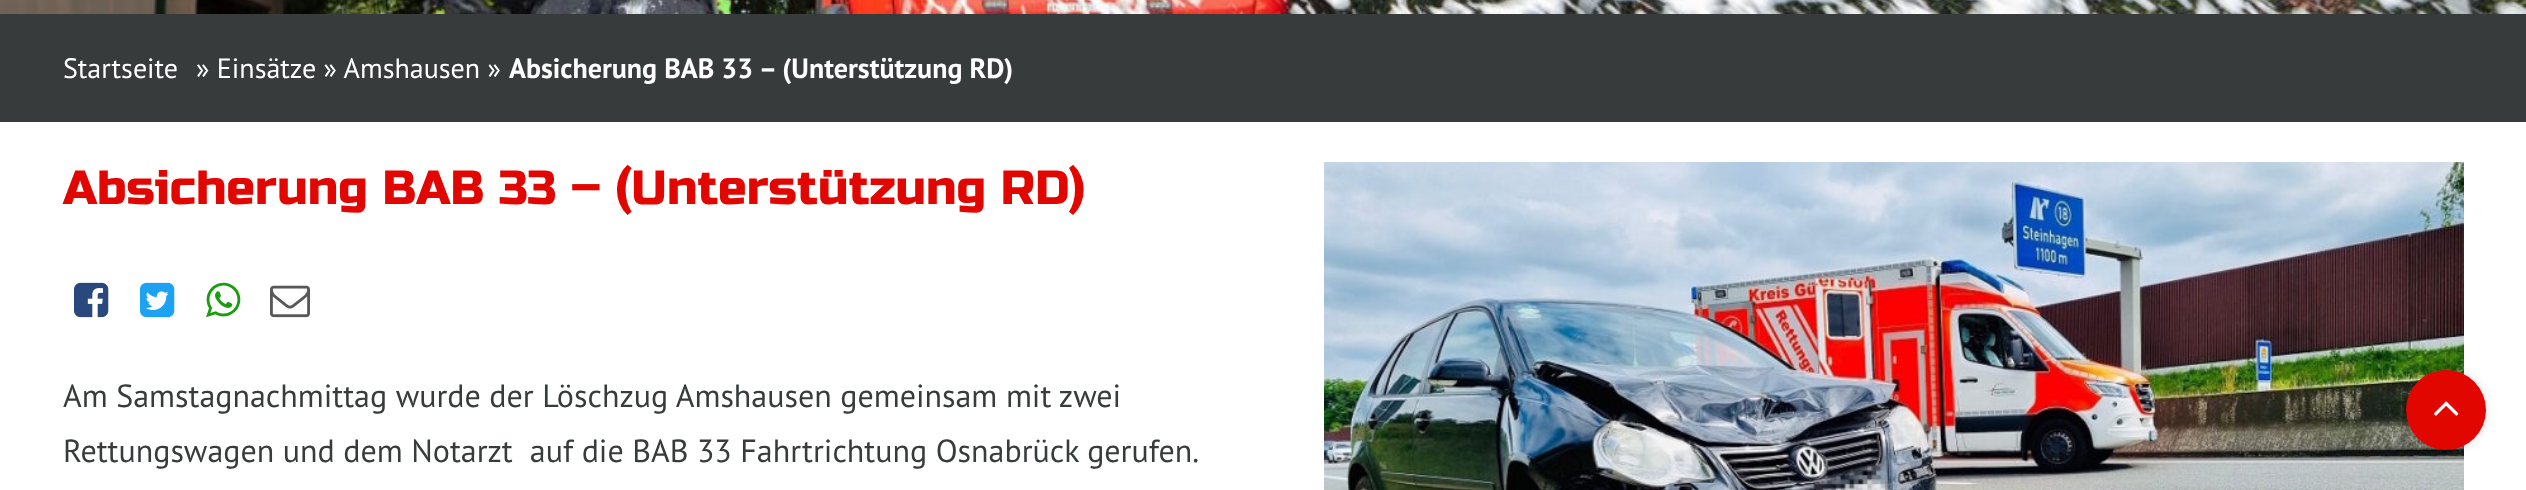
<?xml version="1.0" encoding="UTF-8"?>
<svg xmlns="http://www.w3.org/2000/svg" xmlns:xlink="http://www.w3.org/1999/xlink" width="2526" height="490">
  <rect width="100%" height="100%" fill="#ffffff" />
  <rect y="14" width="2526" height="108" fill="#383b3b" />
  <image x="0" y="0" width="2526" height="14" xlink:href="image1.png" />
  <image x="74" y="282" width="35" height="36" xlink:href="image2.png" />
  <image x="140" y="282" width="35" height="36" xlink:href="image3.png" />
  <image x="206" y="282" width="35" height="36" xlink:href="image4.png" />
  <image x="270" y="285" width="40" height="33" xlink:href="image5.png" />
  <image x="1324" y="162" width="1140" height="328" xlink:href="image6.png" />
  <rect x="2406" y="370" width="80" height="80" rx="40" fill="#000000" fill-opacity="0.15" filter="blur(5px)" />
  <circle cx="2446" cy="410" r="40" fill="#e10600" />
  <image x="2433" y="401" width="26" height="15" xlink:href="image7.png" />
  <text x="63" y="78" style="font-family: PT Sans; font-size: 28px; fill: #ffffff">Startseite</text>
  <text x="196" y="78" style="font-family: PT Sans; font-size: 28px; fill: #ffffff">» Einsätze » Amshausen »</text>
  <text x="509" y="78" style="font-family: PT Sans; font-size: 28px; font-weight: bold; fill: #ffffff">Absicherung BAB 33 – (Unterstützung RD)</text>
  <text x="63" y="204" style="font-family: Russo One; font-size: 48px; fill: #e10600">Absicherung BAB 33 – (Unterstützung RD)</text>
  <text x="63" y="407" style="font-family: PT Sans; font-size: 32px; fill: #383b3b">Am Samstagnachmittag wurde der Löschzug Amshausen gemeinsam mit zwei</text>
  <text x="63" y="462" style="font-family: PT Sans; font-size: 32px; fill: #383b3b" xml:space="preserve">Rettungswagen und dem Notarzt  auf die BAB 33 Fahrtrichtung Osnabrück gerufen.</text>
</svg>
